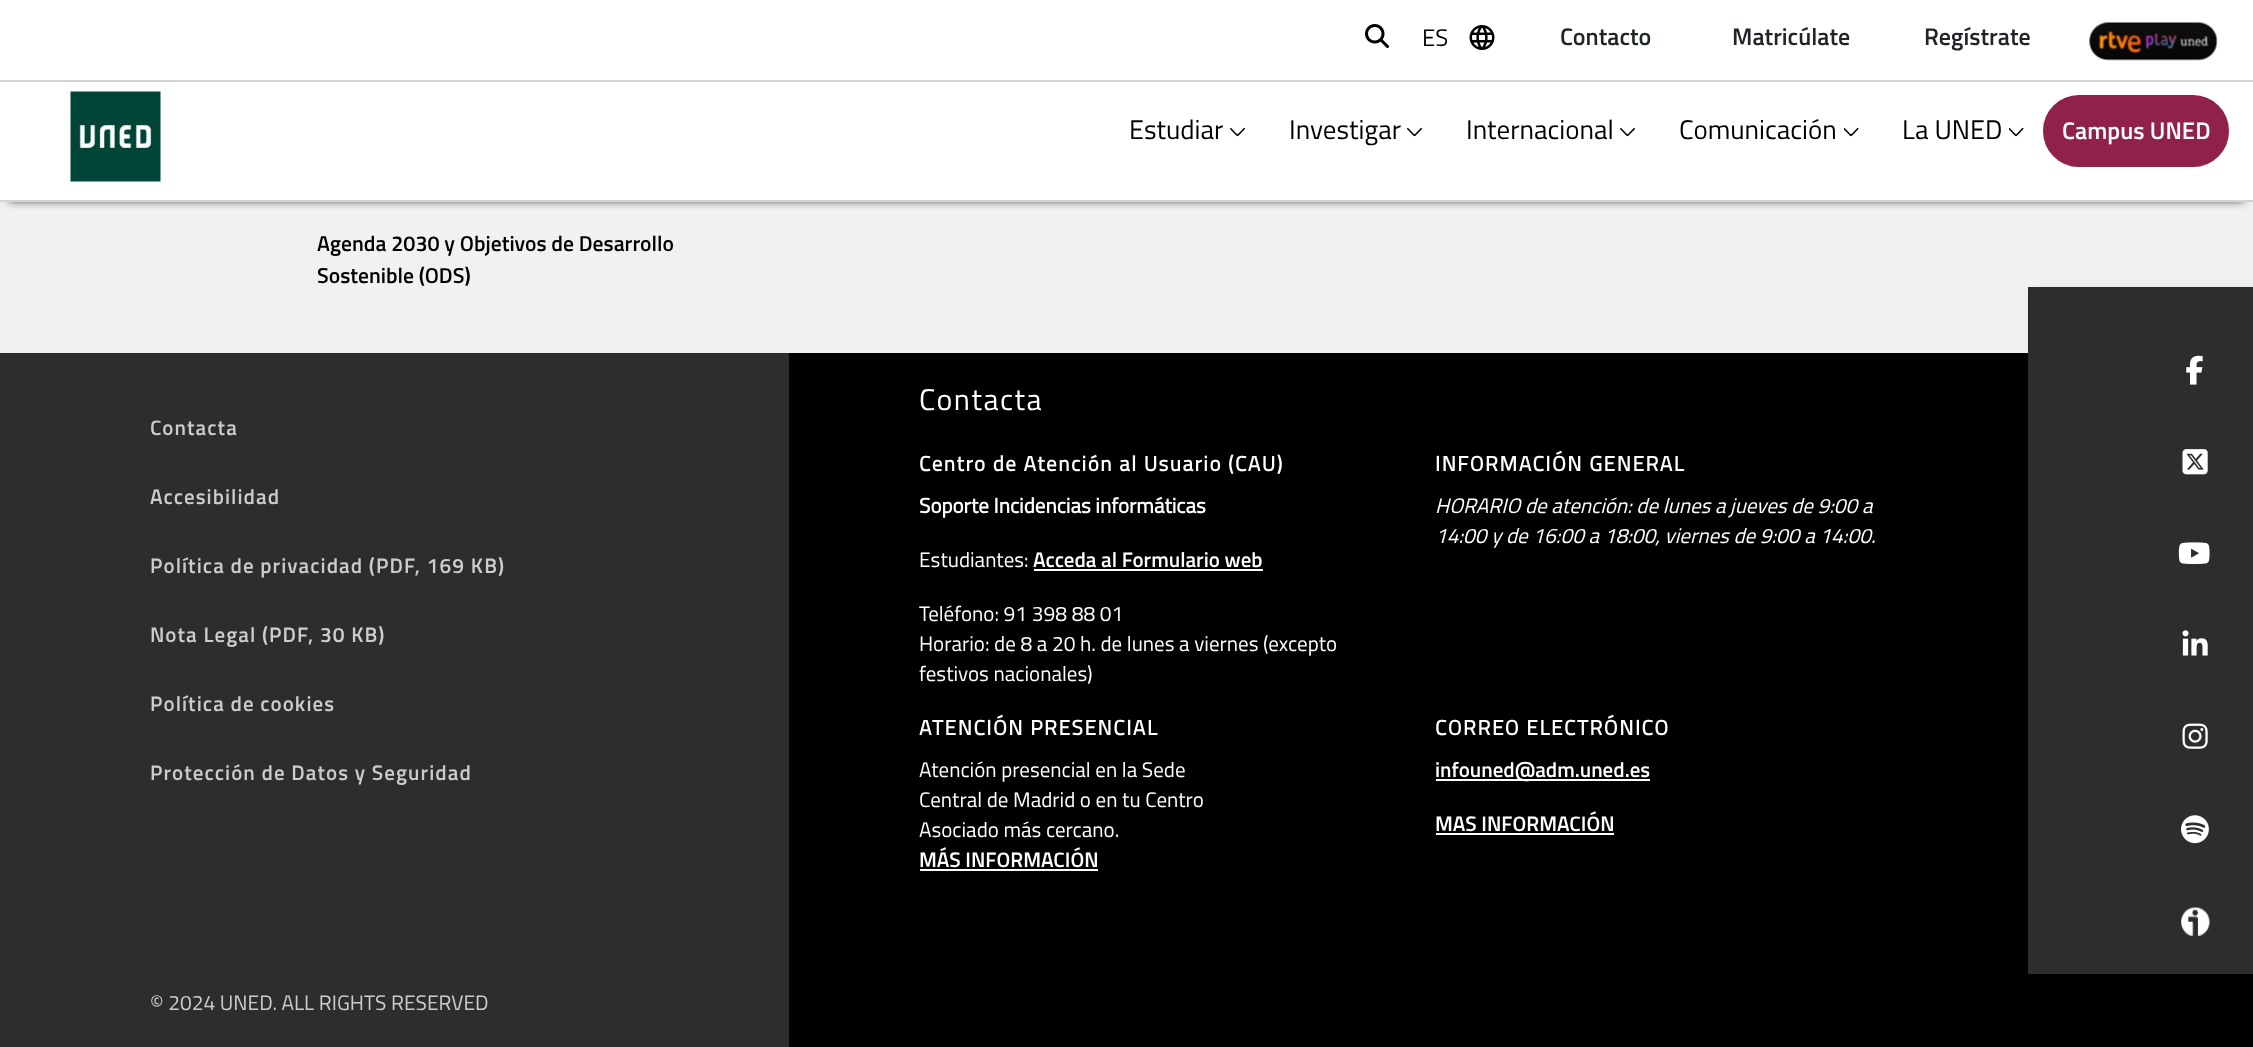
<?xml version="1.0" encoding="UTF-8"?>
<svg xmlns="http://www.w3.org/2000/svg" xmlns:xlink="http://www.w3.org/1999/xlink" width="2253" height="1047">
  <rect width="100%" height="100%" fill="#f1f1f1" />
  <rect x="9" y="90" width="2235" height="111" fill="#000000" fill-opacity="0.75" filter="blur(4px)" />
  <rect width="2253" height="80" fill="#ffffff" />
  <rect y="80" width="2253" height="2" fill="#d3d3d3" />
  <image x="1365" y="24" width="24" height="24" xlink:href="image1.png" />
  <image x="1469" y="25" width="26" height="25" xlink:href="image2.png" />
  <image x="2089" y="22" width="129" height="39" xlink:href="image3.png" />
  <rect y="82" width="2253" height="118" fill="#ffffff" />
  <rect y="200" width="2253" height="2" fill="#d3d3d3" />
  <image x="70" y="91" width="91" height="91" xlink:href="image4.png" />
  <image x="1230" y="127" width="15" height="10" xlink:href="image5.png" />
  <image x="1407" y="127" width="15" height="10" xlink:href="image5.png" />
  <image x="1620" y="127" width="15" height="10" xlink:href="image5.png" />
  <image x="1844" y="127" width="15" height="10" xlink:href="image6.png" />
  <image x="2009" y="127" width="15" height="10" xlink:href="image6.png" />
  <rect x="2044.5" y="96.5" width="183" height="69" rx="34.5" fill="#90214a" stroke="#90214a" stroke-width="3" />
  <rect x="789" y="353" width="1464" height="694" fill="#000000" />
  <rect y="353" width="789" height="694" fill="#2d2d2d" />
  <rect x="1034" y="569" width="229" height="2" fill="#ffffff" />
  <rect x="920" y="869" width="178" height="2" fill="#ffffff" />
  <rect x="1436" y="779" width="214" height="2" fill="#ffffff" />
  <rect x="1436" y="833" width="178" height="2" fill="#ffffff" />
  <rect x="2033" y="291" width="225" height="687" fill="#000000" fill-opacity="0.2" filter="blur(4.5px)" />
  <rect x="2028" y="287" width="225" height="687" fill="#2d2d2d" />
  <image x="2186" y="355" width="17" height="30" xlink:href="image7.png" />
  <image x="2182" y="449" width="26" height="26" xlink:href="image8.png" />
  <image x="2178" y="542" width="32" height="22" xlink:href="image9.png" />
  <image x="2182" y="630" width="26" height="26" xlink:href="image10.png" />
  <image x="2182" y="723" width="26" height="26" xlink:href="image11.png" />
  <image x="2181" y="815" width="28" height="29" xlink:href="image12.png" />
  <image x="2181" y="907" width="29" height="29" xlink:href="image13.png" />
  <text x="1422" y="46" style="font-family: Titillium Web; font-size: 24px; fill: #000000">ES</text>
  <text x="1560" y="45" style="font-family: Titillium Web; font-size: 24px; font-weight: 600; fill: #212529">Contacto</text>
  <text x="1732" y="45" style="font-family: Titillium Web; font-size: 24px; font-weight: 600; fill: #212529">Matricúlate</text>
  <text x="1924" y="45" style="font-family: Titillium Web; font-size: 24px; font-weight: 600; fill: #212529">Regístrate</text>
  <text x="1129" y="139" style="font-family: Titillium Web; font-size: 27px; fill: #000000">Estudiar</text>
  <text x="1289" y="139" style="font-family: Titillium Web; font-size: 27px; fill: #000000">Investigar</text>
  <text x="1466" y="139" style="font-family: Titillium Web; font-size: 27px; fill: #000000">Internacional</text>
  <text x="1679" y="139" style="font-family: Titillium Web; font-size: 27px; fill: #000000">Comunicación</text>
  <text x="1902" y="139" style="font-family: Titillium Web; font-size: 27px; fill: #000000">La UNED</text>
  <text x="2062" y="139" style="font-family: Titillium Web; font-size: 24px; font-weight: 600; fill: #ffffff">Campus UNED</text>
  <text x="317" y="251" style="font-family: Titillium Web; font-size: 21.6px; font-weight: 600; fill: #000000">Agenda 2030 y Objetivos de Desarrollo</text>
  <text x="317" y="283" style="font-family: Titillium Web; font-size: 21.6px; font-weight: 600; fill: #000000">Sostenible (ODS)</text>
  <text x="150" y="435" style="font-family: Titillium Web; font-size: 21px; font-weight: 600; letter-spacing: 1.05px; fill: #cccccc">Contacta</text>
  <text x="150" y="504" style="font-family: Titillium Web; font-size: 21px; font-weight: 600; letter-spacing: 1.05px; fill: #cccccc">Accesibilidad</text>
  <text x="150" y="573" style="font-family: Titillium Web; font-size: 21px; font-weight: 600; letter-spacing: 1.05px; fill: #cccccc">Política de privacidad (PDF, 169 KB)</text>
  <text x="150" y="642" style="font-family: Titillium Web; font-size: 21px; font-weight: 600; letter-spacing: 1.05px; fill: #cccccc">Nota Legal (PDF, 30 KB)</text>
  <text x="150" y="711" style="font-family: Titillium Web; font-size: 21px; font-weight: 600; letter-spacing: 1.05px; fill: #cccccc">Política de cookies</text>
  <text x="150" y="780" style="font-family: Titillium Web; font-size: 21px; font-weight: 600; letter-spacing: 1.05px; fill: #cccccc">Protección de Datos y Seguridad</text>
  <text x="919" y="410" style="font-family: Titillium Web; font-size: 30px; letter-spacing: 1.5px; fill: #ffffff">Contacta</text>
  <text x="919" y="471" style="font-family: Titillium Web; font-size: 21px; font-weight: bold; letter-spacing: 1.5px; fill: #ffffff">Centro de Atención al Usuario (CAU)</text>
  <text x="919" y="513" style="font-family: Titillium Web; font-size: 21px; font-weight: bold; fill: #ffffff">Soporte Incidencias informáticas</text>
  <text x="919" y="567" style="font-family: Titillium Web; font-size: 21px; fill: #ffffff">Estudiantes:</text>
  <text x="1033" y="567" style="font-family: Titillium Web; font-size: 21px; font-weight: 600; fill: #ffffff">Acceda al Formulario web</text>
  <text x="919" y="621" style="font-family: Titillium Web; font-size: 21px; fill: #ffffff">Teléfono: 91 398 88 01</text>
  <text x="919" y="651" style="font-family: Titillium Web; font-size: 21px; fill: #ffffff">Horario: de 8 a 20 h. de lunes a viernes (excepto</text>
  <text x="919" y="681" style="font-family: Titillium Web; font-size: 21px; fill: #ffffff">festivos nacionales)</text>
  <text x="1435" y="471" style="font-family: Titillium Web; font-size: 21px; font-weight: bold; letter-spacing: 1.5px; fill: #ffffff">INFORMACIÓN GENERAL</text>
  <text x="1435" y="513" style="font-family: Titillium Web; font-size: 21px; font-style: italic; fill: #ffffff">HORARIO de atención: de lunes a jueves de 9:00 a</text>
  <text x="1435" y="543" style="font-family: Titillium Web; font-size: 21px; font-style: italic; fill: #ffffff">14:00 y de 16:00 a 18:00, viernes de 9:00 a 14:00.</text>
  <text x="919" y="735" style="font-family: Titillium Web; font-size: 21px; font-weight: bold; letter-spacing: 1.5px; fill: #ffffff">ATENCIÓN PRESENCIAL</text>
  <text x="919" y="777" style="font-family: Titillium Web; font-size: 21px; fill: #ffffff">Atención presencial en la Sede</text>
  <text x="919" y="807" style="font-family: Titillium Web; font-size: 21px; fill: #ffffff">Central de Madrid o en tu Centro</text>
  <text x="919" y="837" style="font-family: Titillium Web; font-size: 21px; fill: #ffffff">Asociado más cercano.</text>
  <text x="919" y="867" style="font-family: Titillium Web; font-size: 21px; font-weight: 600; fill: #ffffff">MÁS INFORMACIÓN</text>
  <text x="1435" y="735" style="font-family: Titillium Web; font-size: 21px; font-weight: bold; letter-spacing: 1.5px; fill: #ffffff">CORREO ELECTRÓNICO</text>
  <text x="1435" y="777" style="font-family: Titillium Web; font-size: 21px; font-weight: 600; fill: #ffffff">infouned@adm.uned.es</text>
  <text x="1435" y="831" style="font-family: Titillium Web; font-size: 21px; font-weight: 600; fill: #ffffff">MAS INFORMACIÓN</text>
  <text x="150" y="1010" style="font-family: Titillium Web; font-size: 21px; fill: #cccccc">© 2024 UNED. ALL RIGHTS RESERVED</text>
</svg>
